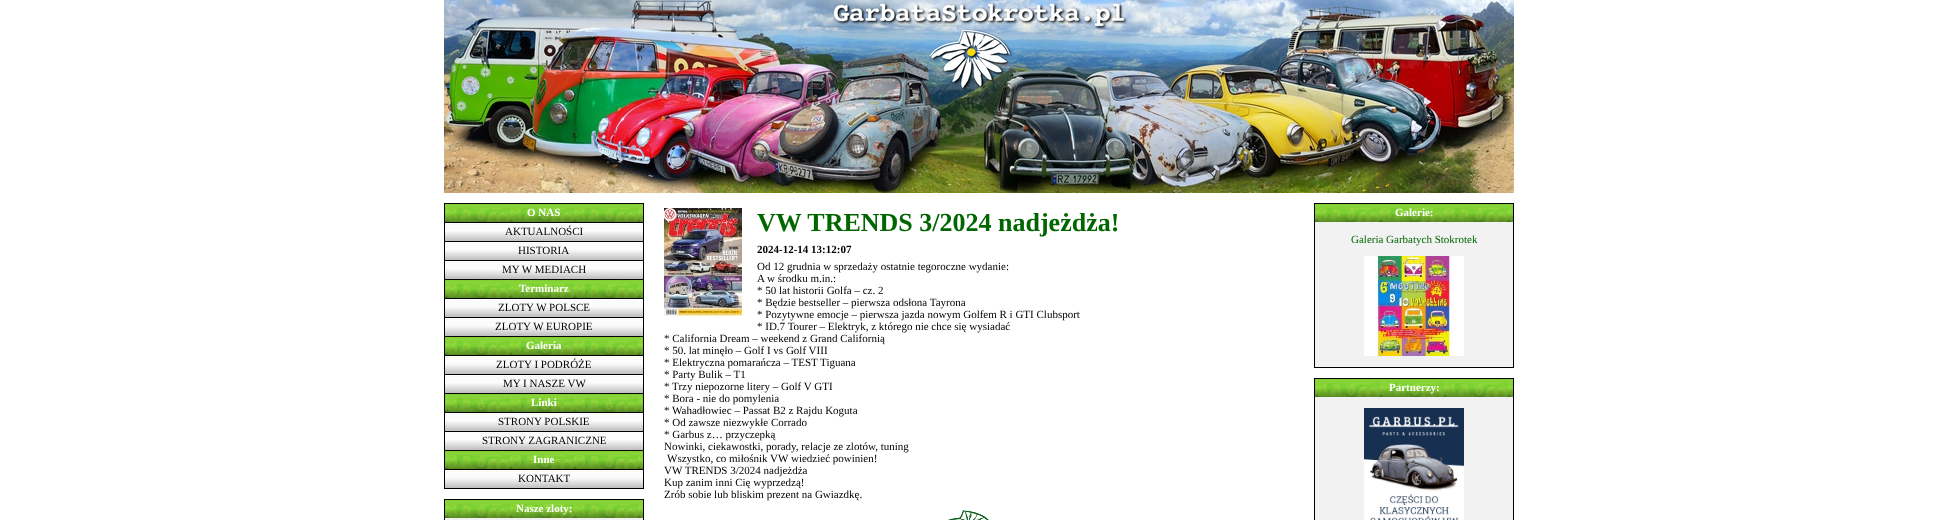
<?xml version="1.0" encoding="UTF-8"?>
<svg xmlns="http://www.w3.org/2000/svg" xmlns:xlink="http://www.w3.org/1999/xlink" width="1958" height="520">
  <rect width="100%" height="100%" fill="#ffffff" />
  <image x="444" y="0" width="1070" height="193" xlink:href="image1.png" />
  <image x="445" y="203" width="198" height="19" xlink:href="image2.png" />
  <rect x="643" y="203" width="1" height="286" fill="#000000" />
  <rect x="444" y="203" width="1" height="286" fill="#000000" />
  <image x="445" y="222" width="198" height="19" xlink:href="image3.png" />
  <image x="445" y="241" width="198" height="19" xlink:href="image3.png" />
  <image x="445" y="260" width="198" height="19" xlink:href="image3.png" />
  <image x="445" y="279" width="198" height="19" xlink:href="image2.png" />
  <image x="445" y="298" width="198" height="19" xlink:href="image3.png" />
  <image x="445" y="317" width="198" height="19" xlink:href="image3.png" />
  <image x="445" y="336" width="198" height="19" xlink:href="image2.png" />
  <image x="445" y="355" width="198" height="19" xlink:href="image3.png" />
  <image x="445" y="374" width="198" height="19" xlink:href="image3.png" />
  <image x="445" y="393" width="198" height="19" xlink:href="image2.png" />
  <image x="445" y="412" width="198" height="19" xlink:href="image3.png" />
  <image x="445" y="431" width="198" height="19" xlink:href="image3.png" />
  <image x="445" y="450" width="198" height="19" xlink:href="image2.png" />
  <image x="445" y="469" width="198" height="20" xlink:href="image4.png" />
  <image x="445" y="499" width="198" height="19" xlink:href="image2.png" />
  <rect x="643" y="499" width="1" height="19" fill="#000000" />
  <rect x="444" y="499" width="1" height="19" fill="#000000" />
  <rect x="444" y="518" width="200" height="2" fill="#f2f2f2" />
  <rect x="643" y="518" width="1" height="2" fill="#000000" />
  <rect x="444" y="518" width="1" height="2" fill="#000000" />
  <image x="664" y="208" width="78" height="108" xlink:href="image5.png" />
  <image x="948" y="510" width="41" height="10" xlink:href="image6.png" />
  <image x="1315" y="203" width="198" height="19" xlink:href="image2.png" />
  <rect x="1513" y="203" width="1" height="165" fill="#000000" />
  <rect x="1314" y="203" width="1" height="19" fill="#000000" />
  <rect x="1315" y="222" width="198" height="145" fill="#f2f2f2" />
  <rect x="1314" y="367" width="200" height="1" fill="#000000" />
  <rect x="1314" y="222" width="1" height="146" fill="#000000" />
  <image x="1364" y="256" width="100" height="100" xlink:href="image7.png" />
  <image x="1315" y="378" width="198" height="19" xlink:href="image2.png" />
  <rect x="1513" y="378" width="1" height="142" fill="#000000" />
  <rect x="1314" y="378" width="1" height="142" fill="#000000" />
  <rect x="1315" y="397" width="198" height="123" fill="#f2f2f2" />
  <image x="1364" y="408" width="100" height="112" xlink:href="image8.png" />
  <text x="527" y="216" style="font-family: Liberation Serif; font-size: 11px; font-weight: bold; fill: #ffffff">O NAS</text>
  <text x="505" y="235" style="font-family: Liberation Serif; font-size: 11px; fill: #000000">AKTUALNOŚCI</text>
  <text x="518" y="254" style="font-family: Liberation Serif; font-size: 11px; fill: #000000">HISTORIA</text>
  <text x="502" y="273" style="font-family: Liberation Serif; font-size: 11px; fill: #000000">MY W MEDIACH</text>
  <text x="519" y="292" style="font-family: Liberation Serif; font-size: 11px; font-weight: bold; fill: #ffffff">Terminarz</text>
  <text x="498" y="311" style="font-family: Liberation Serif; font-size: 11px; fill: #000000">ZLOTY W POLSCE</text>
  <text x="495" y="330" style="font-family: Liberation Serif; font-size: 11px; fill: #000000">ZLOTY W EUROPIE</text>
  <text x="526" y="349" style="font-family: Liberation Serif; font-size: 11px; font-weight: bold; fill: #ffffff">Galeria</text>
  <text x="496" y="368" style="font-family: Liberation Serif; font-size: 11px; fill: #000000">ZLOTY I PODRÓŻE</text>
  <text x="503" y="387" style="font-family: Liberation Serif; font-size: 11px; fill: #000000">MY I NASZE VW</text>
  <text x="531" y="406" style="font-family: Liberation Serif; font-size: 11px; font-weight: bold; fill: #ffffff">Linki</text>
  <text x="498" y="425" style="font-family: Liberation Serif; font-size: 11px; fill: #000000">STRONY POLSKIE</text>
  <text x="482" y="444" style="font-family: Liberation Serif; font-size: 11px; fill: #000000">STRONY ZAGRANICZNE</text>
  <text x="533" y="463" style="font-family: Liberation Serif; font-size: 11px; font-weight: bold; fill: #ffffff">Inne</text>
  <text x="518" y="482" style="font-family: Liberation Serif; font-size: 11px; fill: #000000">KONTAKT</text>
  <text x="516" y="512" style="font-family: Liberation Serif; font-size: 11px; font-weight: bold; fill: #ffffff">Nasze zloty:</text>
  <text x="757" y="231" style="font-family: Liberation Serif; font-size: 26px; font-weight: bold; fill: #006600">VW TRENDS 3/2024 nadjeżdża!</text>
  <text x="757" y="253" style="font-family: Liberation Serif; font-size: 11px; font-weight: bold; fill: #000000">2024-12-14 13:12:07</text>
  <text x="757" y="270" style="font-family: Liberation Serif; font-size: 11px; fill: #000000">Od 12 grudnia w sprzedaży ostatnie tegoroczne wydanie:</text>
  <text x="757" y="282" style="font-family: Liberation Serif; font-size: 11px; fill: #000000">A w środku m.in.:</text>
  <text x="757" y="294" style="font-family: Liberation Serif; font-size: 11px; fill: #000000">* 50 lat historii Golfa – cz. 2</text>
  <text x="757" y="306" style="font-family: Liberation Serif; font-size: 11px; fill: #000000">* Będzie bestseller – pierwsza odsłona Tayrona</text>
  <text x="757" y="318" style="font-family: Liberation Serif; font-size: 11px; fill: #000000">* Pozytywne emocje – pierwsza jazda nowym Golfem R i GTI Clubsport</text>
  <text x="757" y="330" style="font-family: Liberation Serif; font-size: 11px; fill: #000000">* ID.7 Tourer – Elektryk, z którego nie chce się wysiadać</text>
  <text x="664" y="342" style="font-family: Liberation Serif; font-size: 11px; fill: #000000">* California Dream – weekend z Grand Californią</text>
  <text x="664" y="354" style="font-family: Liberation Serif; font-size: 11px; fill: #000000">* 50. lat minęło – Golf I vs Golf VIII</text>
  <text x="664" y="366" style="font-family: Liberation Serif; font-size: 11px; fill: #000000">* Elektryczna pomarańcza – TEST Tiguana</text>
  <text x="664" y="378" style="font-family: Liberation Serif; font-size: 11px; fill: #000000">* Party Bulik – T1</text>
  <text x="664" y="390" style="font-family: Liberation Serif; font-size: 11px; fill: #000000">* Trzy niepozorne litery – Golf V GTI</text>
  <text x="664" y="402" style="font-family: Liberation Serif; font-size: 11px; fill: #000000">* Bora - nie do pomylenia</text>
  <text x="664" y="414" style="font-family: Liberation Serif; font-size: 11px; fill: #000000">* Wahadłowiec – Passat B2 z Rajdu Koguta</text>
  <text x="664" y="426" style="font-family: Liberation Serif; font-size: 11px; fill: #000000">* Od zawsze niezwykłe Corrado</text>
  <text x="664" y="438" style="font-family: Liberation Serif; font-size: 11px; fill: #000000">* Garbus z… przyczepką</text>
  <text x="664" y="450" style="font-family: Liberation Serif; font-size: 11px; fill: #000000">Nowinki, ciekawostki, porady, relacje ze zlotów, tuning</text>
  <text x="667" y="462" style="font-family: Liberation Serif; font-size: 11px; fill: #000000">Wszystko, co miłośnik VW wiedzieć powinien!</text>
  <text x="664" y="474" style="font-family: Liberation Serif; font-size: 11px; fill: #000000">VW TRENDS 3/2024 nadjeżdża</text>
  <text x="664" y="486" style="font-family: Liberation Serif; font-size: 11px; fill: #000000">Kup zanim inni Cię wyprzedzą!</text>
  <text x="664" y="498" style="font-family: Liberation Serif; font-size: 11px; fill: #000000">Zrób sobie lub bliskim prezent na Gwiazdkę.</text>
  <text x="1395" y="216" style="font-family: Liberation Serif; font-size: 11px; font-weight: bold; fill: #ffffff">Galerie:</text>
  <text x="1351" y="243" style="font-family: Liberation Serif; font-size: 11px; fill: #006600">Galeria Garbatych Stokrotek</text>
  <text x="1389" y="391" style="font-family: Liberation Serif; font-size: 11px; font-weight: bold; fill: #ffffff">Partnerzy:</text>
</svg>
